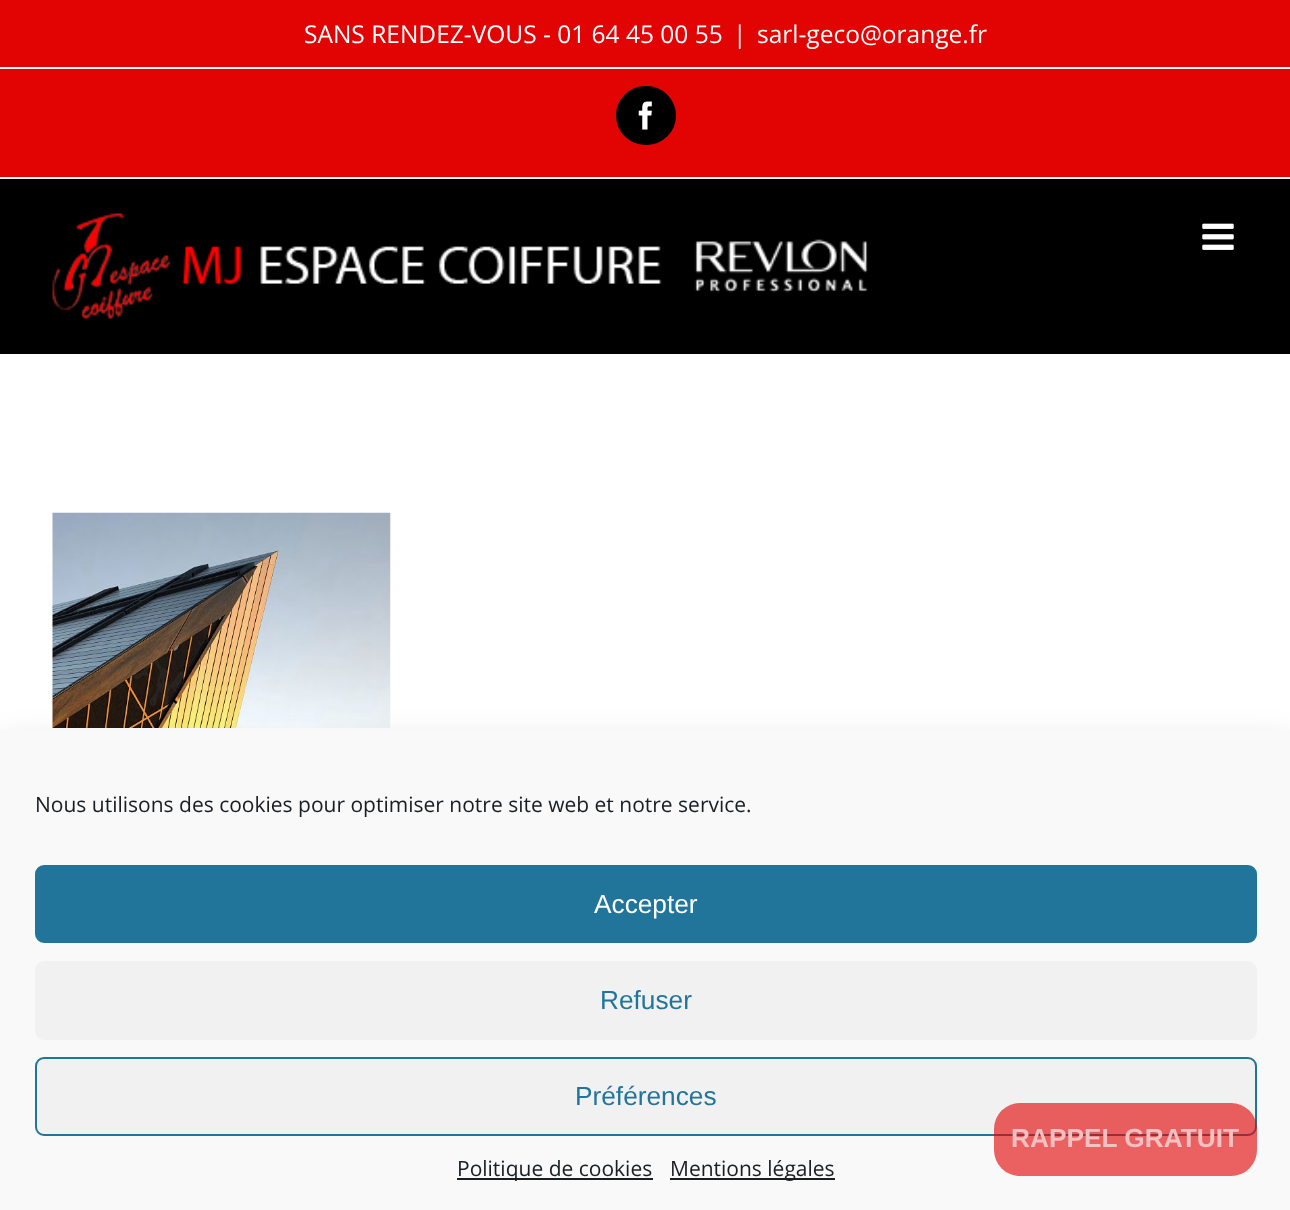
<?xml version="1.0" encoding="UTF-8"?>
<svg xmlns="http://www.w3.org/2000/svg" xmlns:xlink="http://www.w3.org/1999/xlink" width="1290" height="1210">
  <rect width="100%" height="100%" fill="#ffffff" />
  <rect width="1290" height="177" fill="#e20303" />
  <rect y="67" width="1290" height="2" fill="#ffffff" />
  <rect x="617" y="87" width="58" height="57" rx="28.5" fill="#000000" stroke="#000000" stroke-width="2" />
  <image x="638" y="101" width="14" height="29" xlink:href="image1.png" />
  <rect y="179" width="1290" height="175" fill="#000000" />
  <image x="52" y="213" width="816" height="106" xlink:href="image2.png" />
  <image x="1202" y="223" width="32" height="27" xlink:href="image3.png" />
  <image x="52" y="512" width="339" height="216" xlink:href="image4.png" />
  <rect y="746" width="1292" height="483" fill="#000000" fill-opacity="0.19" filter="blur(17.5px)" />
  <rect y="730" width="1290" height="480" fill="#f9f9f9" />
  <rect x="36" y="866" width="1220" height="76" rx="8" fill="#21759b" stroke="#21759b" stroke-width="2" />
  <rect x="35" y="961" width="1222" height="79" rx="9" fill="#f1f1f1" />
  <rect x="36" y="1058" width="1220" height="77" rx="8" fill="#f1f1f1" stroke="#21759b" stroke-width="2" />
  <rect x="457" y="1178" width="196" height="2" fill="#191e23" />
  <rect x="670" y="1178" width="165" height="2" fill="#191e23" />
  <rect x="994" y="1103" width="263" height="73" rx="26" fill="#e20303" fill-opacity="0.62" />
  <text x="304" y="43" style="font-family: Open Sans; font-size: 24.5px; fill: #ffffff">SANS RENDEZ-VOUS - 01 64 45 00 55</text>
  <text x="733" y="43" style="font-family: Open Sans; font-size: 24.5px; fill: #ffffff">|</text>
  <text x="757" y="43" style="font-family: Open Sans; font-size: 24.5px; fill: #ffffff">sarl-geco@orange.fr</text>
  <text x="35" y="812" style="font-family: Open Sans; font-size: 21px; fill: #191e23">Nous utilisons des cookies pour optimiser notre site web et notre service.</text>
  <text x="594" y="913" style="font-family: Liberation Sans; font-size: 26.25px; fill: #ffffff">Accepter</text>
  <text x="600" y="1009" style="font-family: Liberation Sans; font-size: 26.25px; fill: #21759b">Refuser</text>
  <text x="575" y="1105" style="font-family: Liberation Sans; font-size: 26.25px; fill: #21759b">Préférences</text>
  <text x="457" y="1176" style="font-family: Open Sans; font-size: 21px; fill: #191e23">Politique de cookies</text>
  <text x="670" y="1176" style="font-family: Open Sans; font-size: 21px; fill: #191e23">Mentions légales</text>
  <text x="1011" y="1147" style="font-family: Liberation Sans; font-size: 26.25px; font-weight: bold; fill: #f4c0c1">RAPPEL GRATUIT</text>
</svg>
